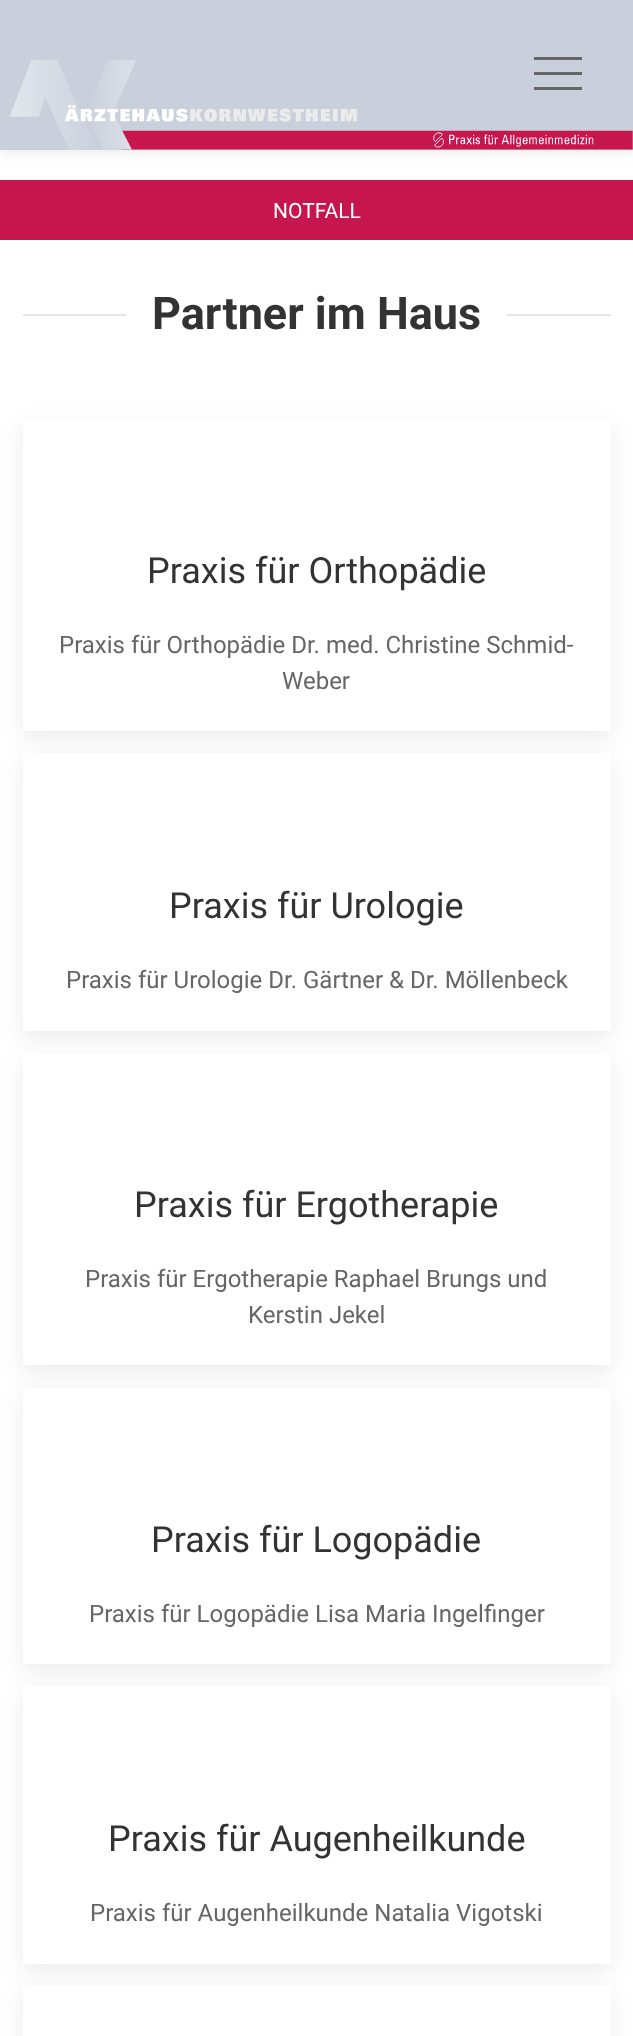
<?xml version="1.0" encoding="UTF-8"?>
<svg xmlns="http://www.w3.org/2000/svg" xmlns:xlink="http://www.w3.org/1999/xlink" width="633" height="2036">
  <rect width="100%" height="100%" fill="#ffffff" />
  <rect y="3" width="633" height="150" fill="#000000" fill-opacity="0.08" filter="blur(6px)" />
  <rect width="633" height="150" fill="#c9d0db" />
  <image x="9" y="60" width="624" height="90" xlink:href="image1.png" />
  <rect x="534" y="57" width="48" height="3" fill="#666666" />
  <rect x="534" y="72" width="48" height="3" fill="#666666" />
  <rect x="534" y="87" width="48" height="3" fill="#666666" />
  <rect y="180" width="633" height="60" fill="#c7164e" />
  <rect x="23" y="314" width="103" height="2" fill="#e5e5e5" />
  <rect x="507" y="314" width="104" height="2" fill="#e5e5e5" />
  <rect x="23" y="426" width="588" height="312" fill="#000000" fill-opacity="0.08" filter="blur(11px)" />
  <rect x="23" y="419" width="588" height="312" fill="#ffffff" />
  <rect x="23" y="761" width="588" height="277" fill="#000000" fill-opacity="0.08" filter="blur(11px)" />
  <rect x="23" y="753" width="588" height="278" fill="#ffffff" />
  <rect x="23" y="1061" width="588" height="312" fill="#000000" fill-opacity="0.08" filter="blur(11px)" />
  <rect x="23" y="1053" width="588" height="312" fill="#ffffff" />
  <rect x="23" y="1395" width="588" height="276" fill="#000000" fill-opacity="0.08" filter="blur(11px)" />
  <rect x="23" y="1388" width="588" height="276" fill="#ffffff" />
  <rect x="23" y="1694" width="588" height="277" fill="#000000" fill-opacity="0.08" filter="blur(11px)" />
  <rect x="23" y="1686" width="588" height="278" fill="#ffffff" />
  <rect x="23" y="1994" width="588" height="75" fill="#000000" fill-opacity="0.08" filter="blur(11px)" />
  <rect x="23" y="1986" width="588" height="50" fill="#ffffff" />
  <text x="273" y="218" style="font-family: Roboto; font-size: 21px; fill: #ffffff">NOTFALL</text>
  <text x="152" y="329" style="font-family: Roboto; font-size: 45px; font-weight: bold; fill: #333333">Partner im Haus</text>
  <text x="147" y="583" style="font-family: Roboto; font-size: 36px; fill: #333333">Praxis für Orthopädie</text>
  <text x="59" y="653" style="font-family: Roboto; font-size: 24px; fill: #666666">Praxis für Orthopädie Dr. med. Christine Schmid-</text>
  <text x="282" y="689" style="font-family: Roboto; font-size: 24px; fill: #666666">Weber</text>
  <text x="169" y="918" style="font-family: Roboto; font-size: 36px; fill: #333333">Praxis für Urologie</text>
  <text x="66" y="988" style="font-family: Roboto; font-size: 24px; fill: #666666">Praxis für Urologie Dr. Gärtner &amp; Dr. Möllenbeck</text>
  <text x="134" y="1217" style="font-family: Roboto; font-size: 36px; fill: #333333">Praxis für Ergotherapie</text>
  <text x="85" y="1287" style="font-family: Roboto; font-size: 24px; fill: #666666">Praxis für Ergotherapie Raphael Brungs und</text>
  <text x="248" y="1323" style="font-family: Roboto; font-size: 24px; fill: #666666">Kerstin Jekel</text>
  <text x="151" y="1552" style="font-family: Roboto; font-size: 36px; fill: #333333">Praxis für Logopädie</text>
  <text x="89" y="1622" style="font-family: Roboto; font-size: 24px; fill: #666666">Praxis für Logopädie Lisa Maria Ingelfinger</text>
  <text x="108" y="1851" style="font-family: Roboto; font-size: 36px; fill: #333333">Praxis für Augenheilkunde</text>
  <text x="90" y="1921" style="font-family: Roboto; font-size: 24px; fill: #666666">Praxis für Augenheilkunde Natalia Vigotski</text>
</svg>
